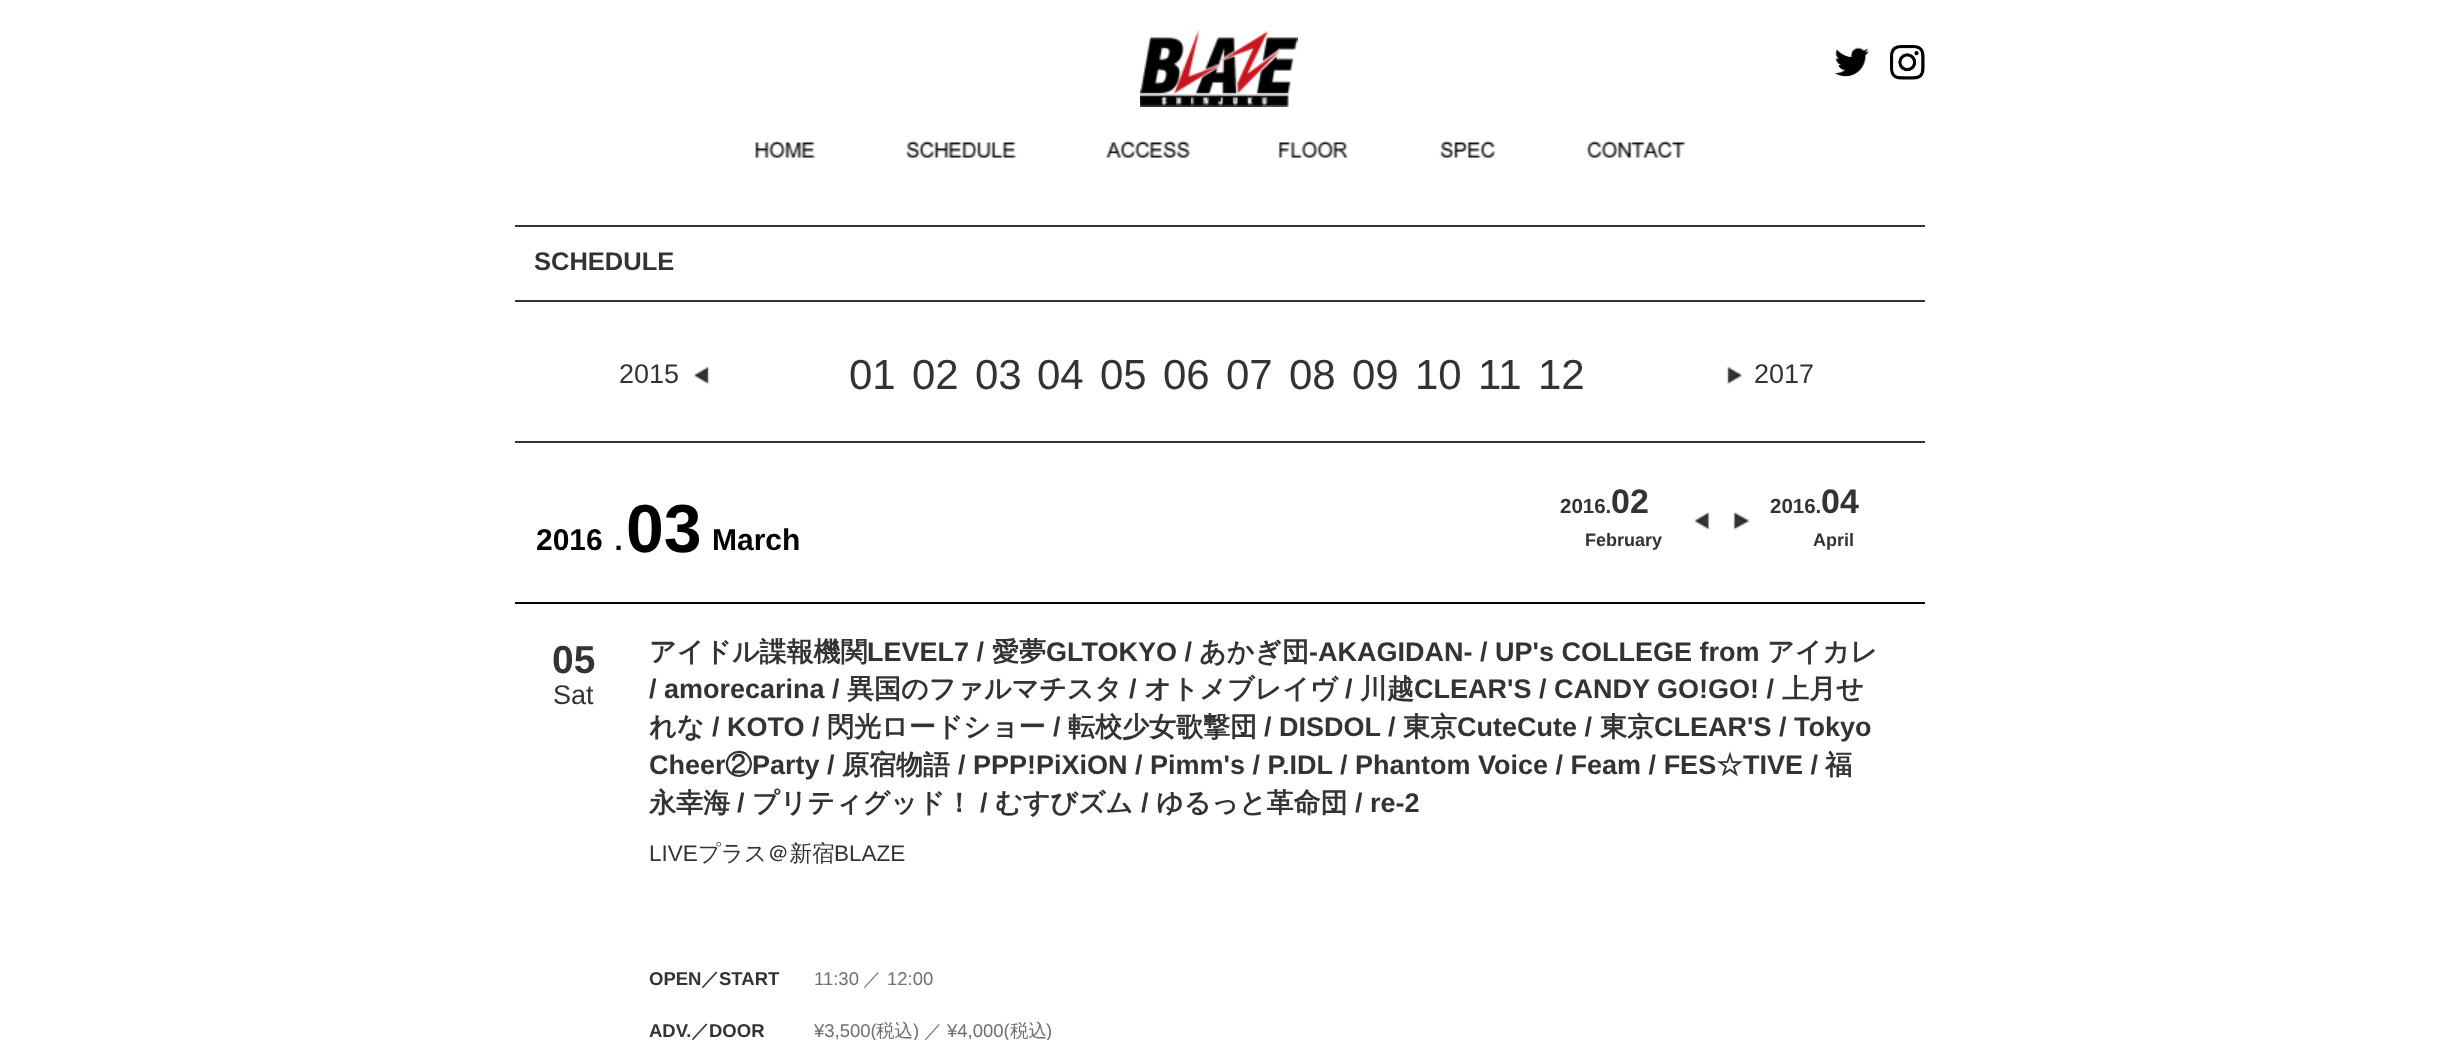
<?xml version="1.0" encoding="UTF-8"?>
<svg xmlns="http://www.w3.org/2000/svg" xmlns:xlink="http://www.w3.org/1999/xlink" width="2437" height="1040">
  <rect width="100%" height="100%" fill="#ffffff" />
  <image x="1140" y="30" width="158" height="77" xlink:href="image1.png" />
  <image x="1834" y="47" width="35" height="30" xlink:href="image2.png" />
  <image x="1890" y="45" width="35" height="35" xlink:href="image3.png" />
  <image x="755" y="140" width="61" height="18" xlink:href="image4.png" />
  <image x="905" y="140" width="112" height="18" xlink:href="image5.png" />
  <image x="1106" y="140" width="85" height="18" xlink:href="image6.png" />
  <image x="1278" y="140" width="70" height="18" xlink:href="image7.png" />
  <image x="1439" y="140" width="57" height="18" xlink:href="image8.png" />
  <image x="1586" y="140" width="100" height="18" xlink:href="image9.png" />
  <rect x="515" y="225" width="1410" height="2" fill="#333333" />
  <rect x="515" y="300" width="1410" height="2" fill="#333333" />
  <rect x="515" y="441" width="1410" height="2" fill="#333333" />
  <image x="694" y="366" width="16" height="19" xlink:href="image10.png" />
  <image x="1726" y="366" width="16" height="19" xlink:href="image11.png" />
  <image x="1694" y="511" width="16" height="19" xlink:href="image12.png" />
  <image x="1732" y="511" width="18" height="19" xlink:href="image13.png" />
  <rect x="515" y="602" width="1410" height="2" fill="#000000" />
  <text x="534" y="270" style="font-family: Liberation Sans; font-size: 25.5px; font-weight: bold; fill: #333333">SCHEDULE</text>
  <text x="619" y="383" style="font-family: Liberation Sans; font-size: 27px; fill: #333333">2015</text>
  <text x="849" y="389" style="font-family: Liberation Sans; font-size: 42px; fill: #333333">01</text>
  <text x="912" y="389" style="font-family: Liberation Sans; font-size: 42px; fill: #333333">02</text>
  <text x="975" y="389" style="font-family: Liberation Sans; font-size: 42px; fill: #333333">03</text>
  <text x="1037" y="389" style="font-family: Liberation Sans; font-size: 42px; fill: #333333">04</text>
  <text x="1100" y="389" style="font-family: Liberation Sans; font-size: 42px; fill: #333333">05</text>
  <text x="1163" y="389" style="font-family: Liberation Sans; font-size: 42px; fill: #333333">06</text>
  <text x="1226" y="389" style="font-family: Liberation Sans; font-size: 42px; fill: #333333">07</text>
  <text x="1289" y="389" style="font-family: Liberation Sans; font-size: 42px; fill: #333333">08</text>
  <text x="1352" y="389" style="font-family: Liberation Sans; font-size: 42px; fill: #333333">09</text>
  <text x="1415" y="389" style="font-family: Liberation Sans; font-size: 42px; fill: #333333">10</text>
  <text x="1478" y="389" style="font-family: Liberation Sans; font-size: 42px; fill: #333333">11</text>
  <text x="1538" y="389" style="font-family: Liberation Sans; font-size: 42px; fill: #333333">12</text>
  <text x="1754" y="383" style="font-family: Liberation Sans; font-size: 27px; fill: #333333">2017</text>
  <text x="536" y="550" style="font-family: Liberation Sans; font-size: 30px; font-weight: bold; fill: #000000">2016</text>
  <text x="603" y="550" style="font-family: WenQuanYi Zen Hei; font-size: 30px; font-weight: bold; fill: #000000">．</text>
  <text x="626" y="552" style="font-family: Liberation Sans; font-size: 68px; font-weight: bold; fill: #000000">03</text>
  <text x="712" y="550" style="font-family: Liberation Sans; font-size: 30px; font-weight: bold; fill: #000000">March</text>
  <text x="1560" y="513" style="font-family: Liberation Sans; font-size: 20.5px; font-weight: bold; fill: #333333">2016.</text>
  <text x="1611" y="513" style="font-family: Liberation Sans; font-size: 34px; font-weight: bold; fill: #333333">02</text>
  <text x="1585" y="546" style="font-family: Liberation Sans; font-size: 18px; font-weight: bold; fill: #333333">February</text>
  <text x="1770" y="513" style="font-family: Liberation Sans; font-size: 20.5px; font-weight: bold; fill: #333333">2016.</text>
  <text x="1821" y="513" style="font-family: Liberation Sans; font-size: 34px; font-weight: bold; fill: #333333">04</text>
  <text x="1813" y="546" style="font-family: Liberation Sans; font-size: 18px; font-weight: bold; fill: #333333">April</text>
  <text x="552" y="673" style="font-family: Liberation Sans; font-size: 39px; font-weight: bold; fill: #333333">05</text>
  <text x="553" y="704" style="font-family: Liberation Sans; font-size: 27px; fill: #333333">Sat</text>
  <text x="649" y="661" style="font-family: WenQuanYi Zen Hei; font-size: 27px; font-weight: bold; fill: #333333">アイドル諜報機関</text>
  <text x="867" y="661" style="font-family: Liberation Sans; font-size: 27px; font-weight: bold; fill: #333333">LEVEL7 /</text>
  <text x="992" y="661" style="font-family: WenQuanYi Zen Hei; font-size: 27px; font-weight: bold; fill: #333333">愛夢</text>
  <text x="1046" y="661" style="font-family: Liberation Sans; font-size: 27px; font-weight: bold; fill: #333333">GLTOKYO /</text>
  <text x="1199" y="661" style="font-family: WenQuanYi Zen Hei; font-size: 27px; font-weight: bold; fill: #333333">あかぎ団</text>
  <text x="1309" y="661" style="font-family: Liberation Sans; font-size: 27px; font-weight: bold; fill: #333333">-AKAGIDAN- / UP's COLLEGE from</text>
  <text x="1767" y="661" style="font-family: WenQuanYi Zen Hei; font-size: 27px; font-weight: bold; fill: #333333">アイカレ</text>
  <text x="649" y="698" style="font-family: Liberation Sans; font-size: 27px; font-weight: bold; fill: #333333">/ amorecarina /</text>
  <text x="847" y="698" style="font-family: WenQuanYi Zen Hei; font-size: 27px; font-weight: bold; fill: #333333">異国のファルマチスタ</text>
  <text x="1129" y="698" style="font-family: Liberation Sans; font-size: 27px; font-weight: bold; fill: #333333">/</text>
  <text x="1144" y="698" style="font-family: WenQuanYi Zen Hei; font-size: 27px; font-weight: bold; fill: #333333">オトメブレイヴ</text>
  <text x="1345" y="698" style="font-family: Liberation Sans; font-size: 27px; font-weight: bold; fill: #333333">/</text>
  <text x="1360" y="698" style="font-family: WenQuanYi Zen Hei; font-size: 27px; font-weight: bold; fill: #333333">川越</text>
  <text x="1414" y="698" style="font-family: Liberation Sans; font-size: 27px; font-weight: bold; fill: #333333">CLEAR'S / CANDY GO!GO! /</text>
  <text x="1782" y="698" style="font-family: WenQuanYi Zen Hei; font-size: 27px; font-weight: bold; fill: #333333">上月せ</text>
  <text x="649" y="736" style="font-family: WenQuanYi Zen Hei; font-size: 27px; font-weight: bold; fill: #333333">れな</text>
  <text x="712" y="736" style="font-family: Liberation Sans; font-size: 27px; font-weight: bold; fill: #333333">/ KOTO /</text>
  <text x="827" y="736" style="font-family: WenQuanYi Zen Hei; font-size: 27px; font-weight: bold; fill: #333333">閃光ロードショー</text>
  <text x="1053" y="736" style="font-family: Liberation Sans; font-size: 27px; font-weight: bold; fill: #333333">/</text>
  <text x="1068" y="736" style="font-family: WenQuanYi Zen Hei; font-size: 27px; font-weight: bold; fill: #333333">転校少女歌撃団</text>
  <text x="1264" y="736" style="font-family: Liberation Sans; font-size: 27px; font-weight: bold; fill: #333333">/ DISDOL /</text>
  <text x="1403" y="736" style="font-family: WenQuanYi Zen Hei; font-size: 27px; font-weight: bold; fill: #333333">東京</text>
  <text x="1457" y="736" style="font-family: Liberation Sans; font-size: 27px; font-weight: bold; fill: #333333">CuteCute /</text>
  <text x="1600" y="736" style="font-family: WenQuanYi Zen Hei; font-size: 27px; font-weight: bold; fill: #333333">東京</text>
  <text x="1654" y="736" style="font-family: Liberation Sans; font-size: 27px; font-weight: bold; fill: #333333">CLEAR'S / Tokyo</text>
  <text x="649" y="774" style="font-family: Liberation Sans; font-size: 27px; font-weight: bold; fill: #333333">Cheer</text>
  <text x="725" y="774" style="font-family: WenQuanYi Zen Hei; font-size: 27px; font-weight: bold; fill: #333333">②</text>
  <text x="752" y="774" style="font-family: Liberation Sans; font-size: 27px; font-weight: bold; fill: #333333">Party /</text>
  <text x="842" y="774" style="font-family: WenQuanYi Zen Hei; font-size: 27px; font-weight: bold; fill: #333333">原宿物語</text>
  <text x="958" y="774" style="font-family: Liberation Sans; font-size: 27px; font-weight: bold; fill: #333333">/ PPP!PiXiON / Pimm's / P.IDL / Phantom Voice / Feam / FES</text>
  <text x="1716" y="774" style="font-family: WenQuanYi Zen Hei; font-size: 27px; font-weight: bold; fill: #333333">☆</text>
  <text x="1743" y="774" style="font-family: Liberation Sans; font-size: 27px; font-weight: bold; fill: #333333">TIVE /</text>
  <text x="1825" y="774" style="font-family: WenQuanYi Zen Hei; font-size: 27px; font-weight: bold; fill: #333333">福</text>
  <text x="649" y="812" style="font-family: WenQuanYi Zen Hei; font-size: 27px; font-weight: bold; fill: #333333">永幸海</text>
  <text x="737" y="812" style="font-family: Liberation Sans; font-size: 27px; font-weight: bold; fill: #333333">/</text>
  <text x="752" y="812" style="font-family: WenQuanYi Zen Hei; font-size: 27px; font-weight: bold; fill: #333333">プリティグッド！</text>
  <text x="980" y="812" style="font-family: Liberation Sans; font-size: 27px; font-weight: bold; fill: #333333">/</text>
  <text x="995" y="812" style="font-family: WenQuanYi Zen Hei; font-size: 27px; font-weight: bold; fill: #333333">むすびズム</text>
  <text x="1141" y="812" style="font-family: Liberation Sans; font-size: 27px; font-weight: bold; fill: #333333">/</text>
  <text x="1156" y="812" style="font-family: WenQuanYi Zen Hei; font-size: 27px; font-weight: bold; fill: #333333">ゆるっと革命団</text>
  <text x="1355" y="812" style="font-family: Liberation Sans; font-size: 27px; font-weight: bold; fill: #333333">/ re-2</text>
  <text x="649" y="861" style="font-family: Liberation Sans; font-size: 22.5px; fill: #333333">LIVE</text>
  <text x="698" y="861" style="font-family: WenQuanYi Zen Hei; font-size: 22.5px; font-weight: 500; fill: #333333">プラス＠新宿</text>
  <text x="834" y="861" style="font-family: Liberation Sans; font-size: 22.5px; fill: #333333">BLAZE</text>
  <text x="649" y="985" style="font-family: Liberation Sans; font-size: 18.5px; font-weight: bold; fill: #333333">OPEN</text>
  <text x="701" y="985" style="font-family: WenQuanYi Zen Hei; font-size: 18.5px; font-weight: bold; fill: #333333">／</text>
  <text x="719" y="985" style="font-family: Liberation Sans; font-size: 18.5px; font-weight: bold; fill: #333333">START</text>
  <text x="814" y="985" style="font-family: Liberation Sans; font-size: 18.5px; fill: #707070">11:30</text>
  <text x="863" y="985" style="font-family: WenQuanYi Zen Hei; font-size: 18.5px; font-weight: 500; fill: #707070">／</text>
  <text x="887" y="985" style="font-family: Liberation Sans; font-size: 18.5px; fill: #707070">12:00</text>
  <text x="649" y="1037" style="font-family: Liberation Sans; font-size: 18.5px; font-weight: bold; fill: #333333">ADV.</text>
  <text x="691" y="1037" style="font-family: WenQuanYi Zen Hei; font-size: 18.5px; font-weight: bold; fill: #333333">／</text>
  <text x="709" y="1037" style="font-family: Liberation Sans; font-size: 18.5px; font-weight: bold; fill: #333333">DOOR</text>
  <text x="814" y="1037" style="font-family: Liberation Sans; font-size: 18.5px; fill: #707070">¥3,500(</text>
  <text x="876" y="1037" style="font-family: WenQuanYi Zen Hei; font-size: 18.5px; font-weight: 500; fill: #707070">税込</text>
  <text x="913" y="1037" style="font-family: Liberation Sans; font-size: 18.5px; fill: #707070">)</text>
  <text x="924" y="1037" style="font-family: WenQuanYi Zen Hei; font-size: 18.5px; font-weight: 500; fill: #707070">／</text>
  <text x="947" y="1037" style="font-family: Liberation Sans; font-size: 18.5px; fill: #707070">¥4,000(</text>
  <text x="1010" y="1037" style="font-family: WenQuanYi Zen Hei; font-size: 18.5px; font-weight: 500; fill: #707070">税込</text>
  <text x="1046" y="1037" style="font-family: Liberation Sans; font-size: 18.5px; fill: #707070">)</text>
</svg>
